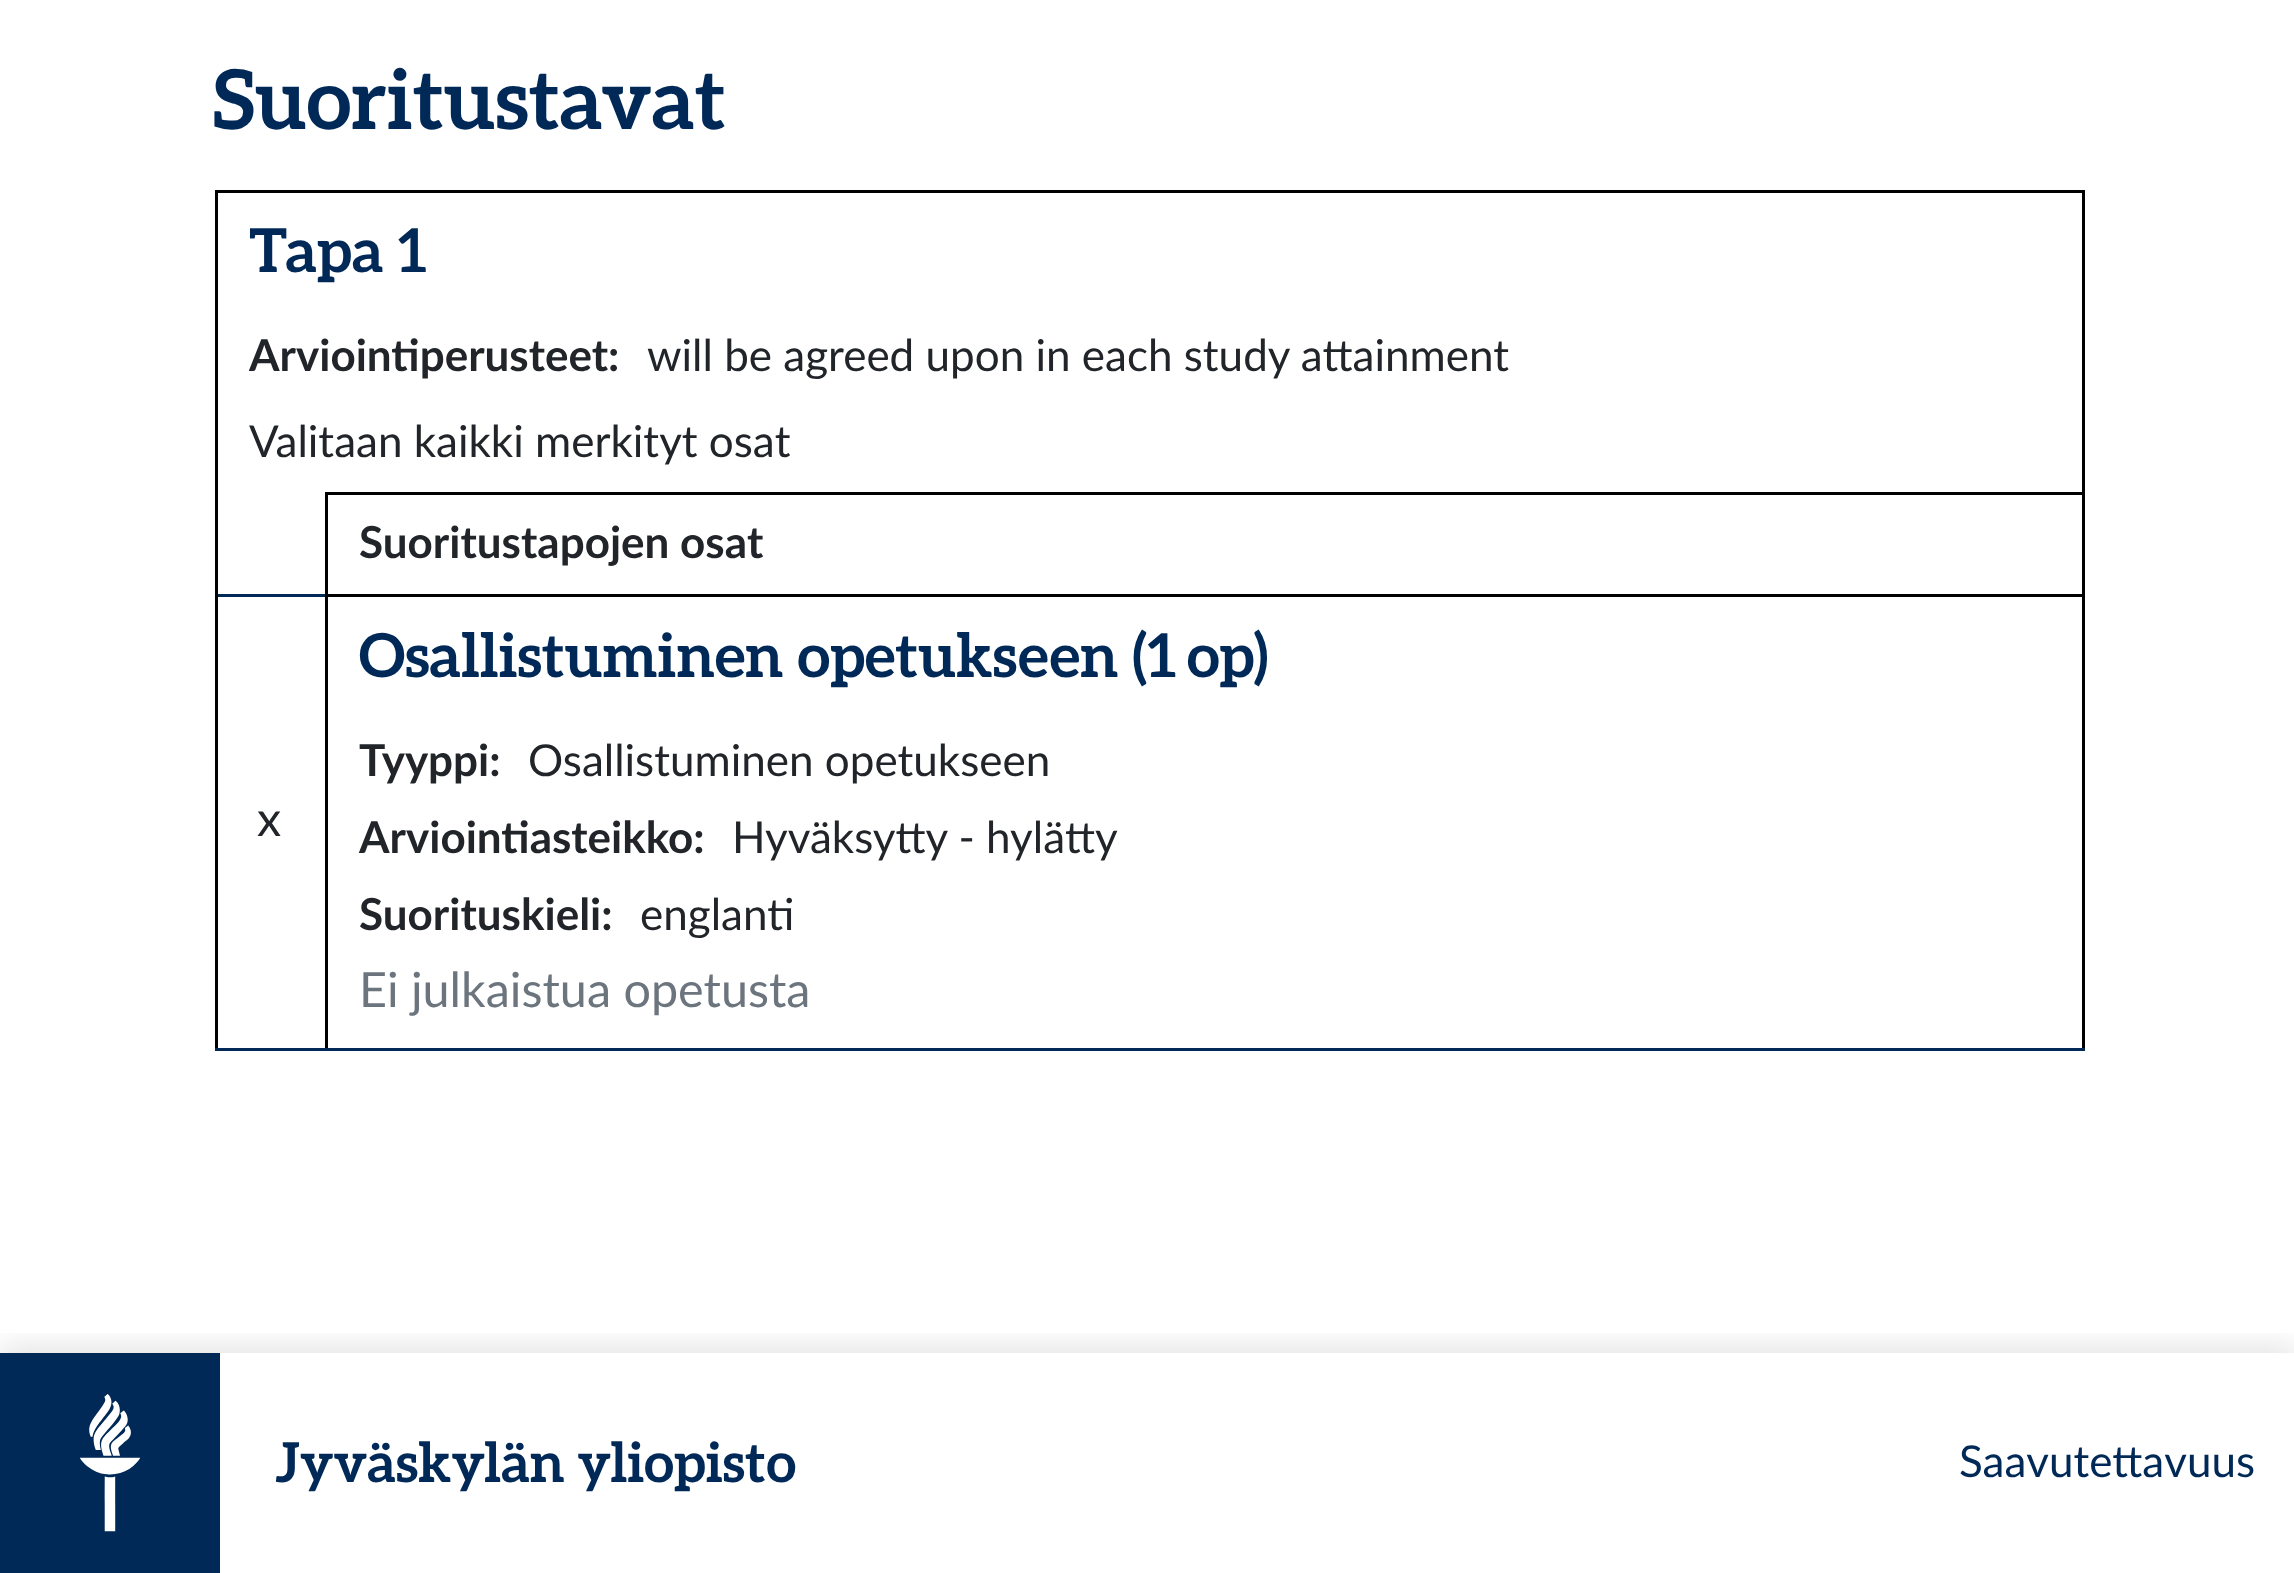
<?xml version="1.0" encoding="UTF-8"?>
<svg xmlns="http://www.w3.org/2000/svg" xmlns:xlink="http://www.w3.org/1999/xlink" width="2294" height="1573">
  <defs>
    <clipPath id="clip1"><rect x="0" y="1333" width="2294" height="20" /></clipPath>
  </defs>
  <rect width="100%" height="100%" fill="#ffffff" />
  <rect x="215" y="190" width="1870" height="3" fill="#000000" />
  <rect x="2082" y="190" width="3" height="302" fill="#000000" />
  <rect x="215" y="190" width="3" height="404" fill="#000000" />
  <rect x="325" y="492" width="1760" height="3" fill="#000000" />
  <rect x="2082" y="492" width="3" height="102" fill="#000000" />
  <rect x="325" y="492" width="3" height="102" fill="#000000" />
  <rect x="215" y="594" width="110" height="3" fill="#002957" />
  <rect x="215" y="594" width="3" height="454" fill="#000000" />
  <rect x="325" y="594" width="1760" height="3" fill="#000000" />
  <rect x="2082" y="594" width="3" height="454" fill="#000000" />
  <rect x="325" y="594" width="3" height="454" fill="#000000" />
  <rect x="215" y="1048" width="1870" height="3" fill="#002957" />
  <g clip-path="url(#clip1)">
    <rect y="1345" width="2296" height="220" fill="#000000" fill-opacity="0.1" filter="blur(14px)" />
  </g>
  <rect y="1353" width="220" height="220" fill="#002957" />
  <image x="80" y="1394" width="60" height="138" xlink:href="image1.png" />
  <text x="213" y="129" style="font-family: Aleo; font-size: 82.5px; font-weight: bold; fill: #002957">Suoritustavat</text>
  <text x="249" y="272" style="font-family: Aleo; font-size: 60.5px; font-weight: bold; fill: #002957">Tapa 1</text>
  <text x="249" y="371" style="font-family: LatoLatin; font-size: 44px; font-weight: bold; fill: #212529">Arviointiperusteet:</text>
  <text x="647" y="371" style="font-family: LatoLatin; font-size: 44px; fill: #212529">will be agreed upon in each study attainment</text>
  <text x="249" y="457" style="font-family: LatoLatin; font-size: 44px; fill: #212529">Valitaan kaikki merkityt osat</text>
  <text x="359" y="558" style="font-family: LatoLatin; font-size: 44px; font-weight: bold; fill: #212529">Suoritustapojen osat</text>
  <text x="257" y="836" style="font-family: LatoLatin; font-size: 48.5px; fill: #212529">x</text>
  <text x="359" y="677" style="font-family: Aleo; font-size: 60.5px; font-weight: bold; fill: #002957">Osallistuminen opetukseen (1</text>
  <text x="1187" y="677" style="font-family: Aleo; font-size: 60.5px; font-weight: bold; fill: #002957">op)</text>
  <text x="359" y="776" style="font-family: LatoLatin; font-size: 44px; font-weight: bold; fill: #212529">Tyyppi:</text>
  <text x="528" y="776" style="font-family: LatoLatin; font-size: 44px; fill: #212529">Osallistuminen opetukseen</text>
  <text x="359" y="853" style="font-family: LatoLatin; font-size: 44px; font-weight: bold; fill: #212529">Arviointiasteikko:</text>
  <text x="732" y="853" style="font-family: LatoLatin; font-size: 44px; fill: #212529">Hyväksytty - hylätty</text>
  <text x="359" y="930" style="font-family: LatoLatin; font-size: 44px; font-weight: bold; fill: #212529">Suorituskieli:</text>
  <text x="640" y="930" style="font-family: LatoLatin; font-size: 44px; fill: #212529">englanti</text>
  <text x="359" y="1007" style="font-family: LatoLatin; font-size: 48.5px; fill: #6c757d">Ei julkaistua opetusta</text>
  <text x="275" y="1482" style="font-family: Aleo; font-size: 55px; font-weight: bold; fill: #002957">Jyväskylän yliopisto</text>
  <text x="1959" y="1477" style="font-family: LatoLatin; font-size: 44px; fill: #002957">Saavutettavuus</text>
</svg>
